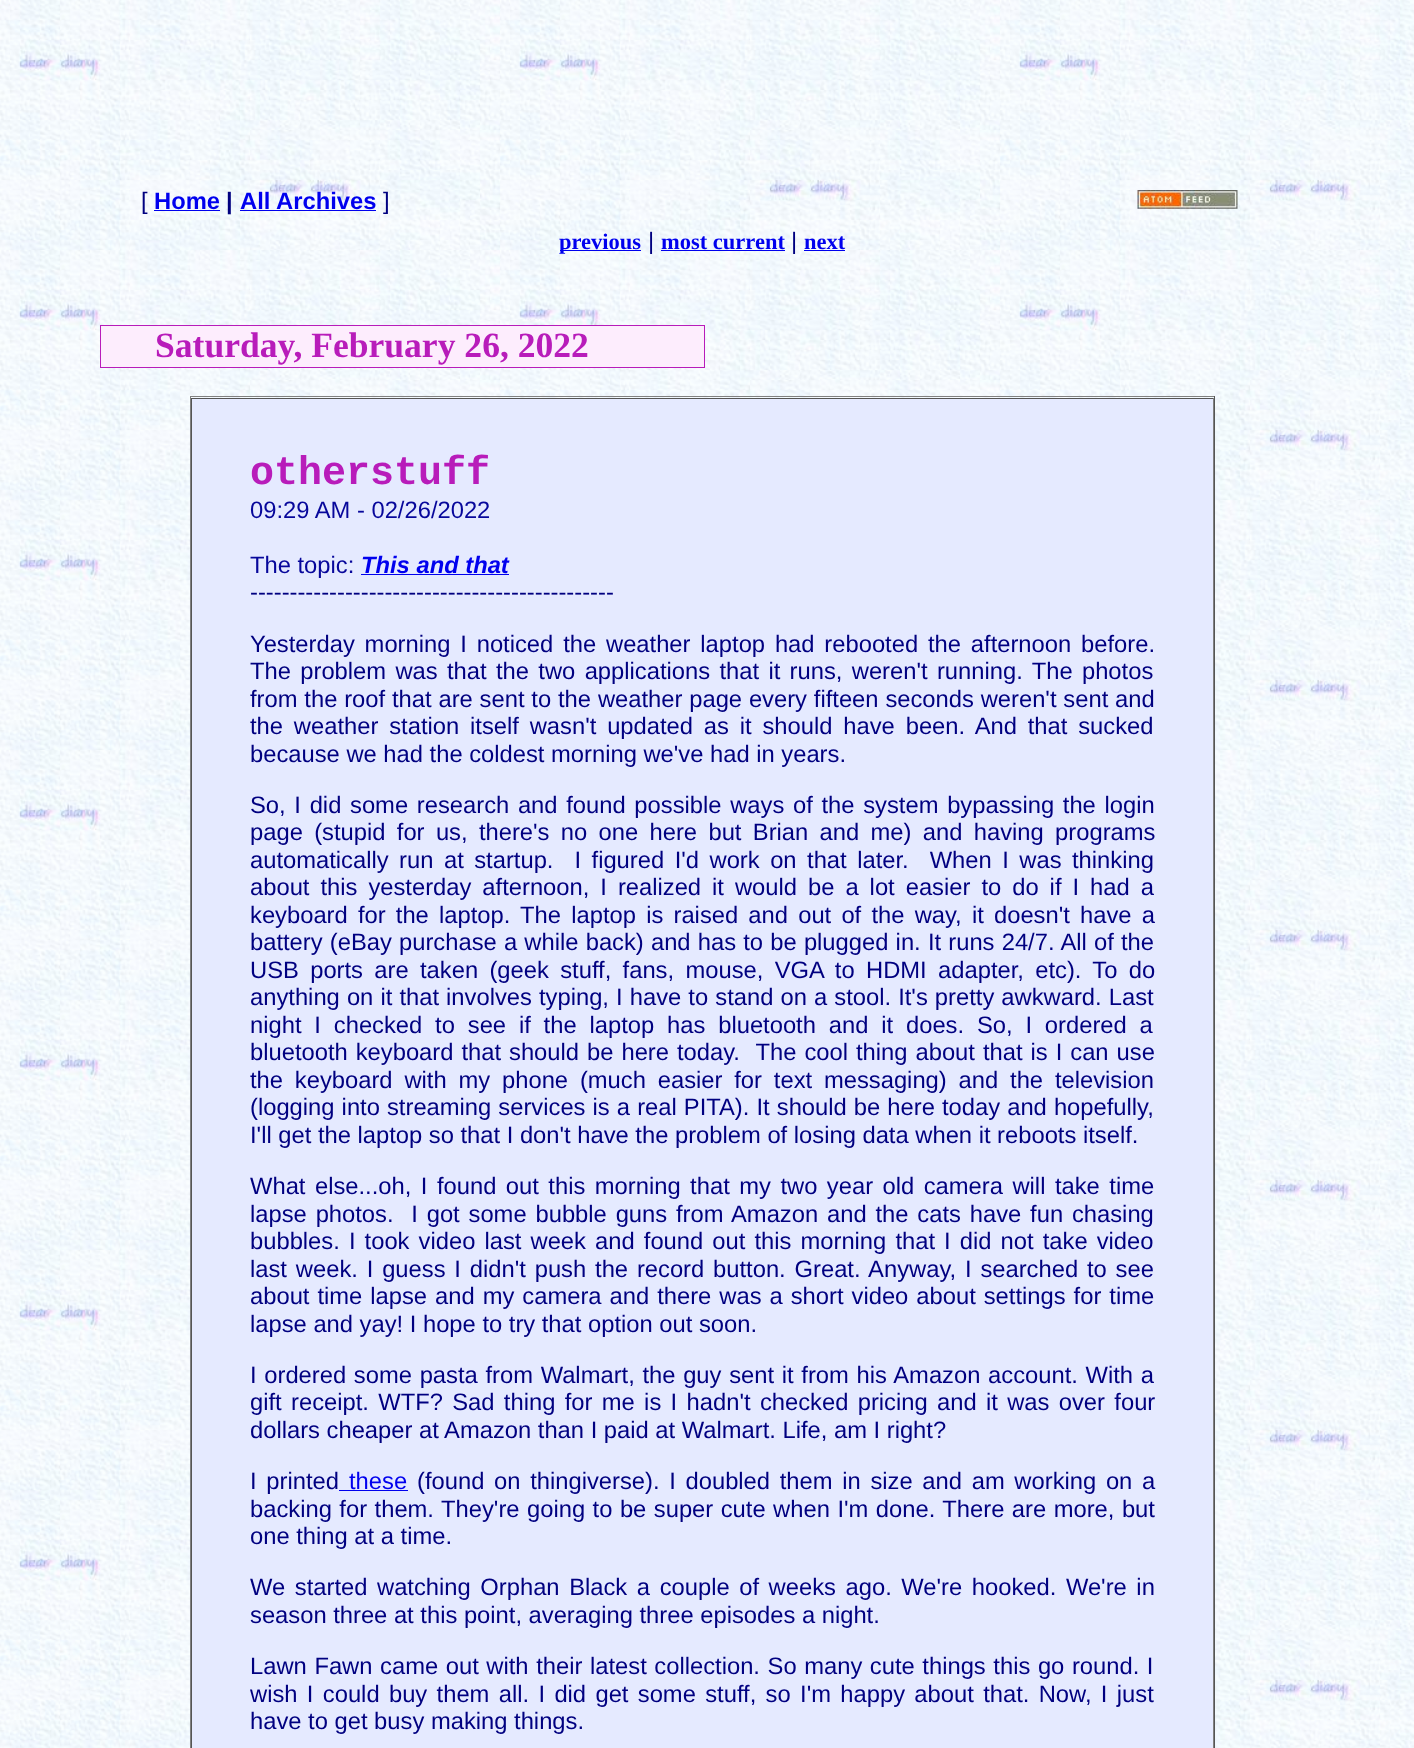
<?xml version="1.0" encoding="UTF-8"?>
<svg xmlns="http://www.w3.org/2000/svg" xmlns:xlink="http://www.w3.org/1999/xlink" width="1414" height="1748">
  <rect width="100%" height="100%" fill="#ffffff" />
  <image x="0" y="0" width="1414" height="1748" xlink:href="image1.png" />
  <rect x="154" y="210" width="66" height="1" fill="#0000ee" />
  <rect x="240" y="210" width="136" height="1" fill="#0000ee" />
  <image x="1137" y="190" width="101" height="19" xlink:href="image2.png" />
  <rect x="560" y="250" width="81" height="1" fill="#0000ee" />
  <rect x="661" y="250" width="124" height="1" fill="#0000ee" />
  <rect x="804" y="250" width="41" height="1" fill="#0000ee" />
  <rect x="100.5" y="325.5" width="604" height="42" fill="#fdedfd" stroke="#b81cba" />
  <rect x="190" y="396" width="1025" height="1" fill="#808080" />
  <rect x="1214" y="396" width="1" height="1352" fill="#555555" />
  <rect x="190" y="396" width="1" height="1352" fill="#808080" />
  <rect x="192" y="399" width="1021" height="1349" fill="#e5eaff" />
  <rect x="191" y="398" width="1023" height="1" fill="#555555" />
  <rect x="1213" y="398" width="1" height="1350" fill="#808080" />
  <rect x="191" y="398" width="1" height="1350" fill="#555555" />
  <rect x="361" y="574" width="148" height="1" fill="#0000ee" />
  <rect x="339" y="1490" width="69" height="1" fill="#0000ee" />
  <text x="141" y="209" style="font-family: Liberation Sans; font-size: 23.75px; fill: #000080">[</text>
  <text x="154" y="209" style="font-family: Liberation Sans; font-size: 23.75px; font-weight: bold; fill: #0000ee">Home</text>
  <text x="226" y="209" style="font-family: Liberation Sans; font-size: 23.75px; font-weight: bold; fill: #000080">|</text>
  <text x="240" y="209" style="font-family: Liberation Sans; font-size: 23.75px; font-weight: bold; fill: #0000ee">All Archives</text>
  <text x="383" y="209" style="font-family: Liberation Sans; font-size: 23.75px; fill: #000080">]</text>
  <text x="559" y="249" style="font-family: Liberation Serif; font-size: 22.5px; font-weight: bold; fill: #0000ee">previous</text>
  <text x="648" y="249" style="font-family: Liberation Sans; font-size: 23.75px; fill: #000080">|</text>
  <text x="661" y="249" style="font-family: Liberation Serif; font-size: 22.5px; font-weight: bold; fill: #0000ee">most current</text>
  <text x="791" y="249" style="font-family: Liberation Sans; font-size: 23.75px; fill: #000080">|</text>
  <text x="804" y="249" style="font-family: Liberation Serif; font-size: 22.5px; font-weight: bold; fill: #0000ee">next</text>
  <text x="155" y="357" style="font-family: Liberation Serif; font-size: 35.6px; font-weight: bold; fill: #b81cba">Saturday, February 26, 2022</text>
  <text x="250" y="484" style="font-family: Liberation Mono; font-size: 40px; font-weight: bold; fill: #b81cba">otherstuff</text>
  <text x="250" y="518" style="font-family: Liberation Sans; font-size: 23.75px; fill: #07079b">09:29 AM - 02/26/2022</text>
  <text x="250" y="573" style="font-family: Liberation Sans; font-size: 23.75px; fill: #07079b">The topic:</text>
  <text x="361" y="573" style="font-family: Liberation Sans; font-size: 23.75px; font-weight: bold; font-style: italic; fill: #0000ee">This and that</text>
  <text x="250" y="600" style="font-family: Liberation Sans; font-size: 23.75px; fill: #000080">----------------------------------------------</text>
  <text x="250" y="652" word-spacing="3.25" style="font-family: Liberation Sans; font-size: 23.75px; fill: #000080">Yesterday morning I noticed the weather laptop had rebooted the afternoon before.</text>
  <text x="250" y="679" word-spacing="2.75" style="font-family: Liberation Sans; font-size: 23.75px; fill: #000080">The problem was that the two applications that it runs, weren't running. The photos</text>
  <text x="250" y="707" word-spacing="0.25" style="font-family: Liberation Sans; font-size: 23.75px; fill: #000080">from the roof that are sent to the weather page every fifteen seconds weren't sent and</text>
  <text x="250" y="734" word-spacing="4.25" style="font-family: Liberation Sans; font-size: 23.75px; fill: #000080">the weather station itself wasn't updated as it should have been. And that sucked</text>
  <text x="250" y="762" style="font-family: Liberation Sans; font-size: 23.75px; fill: #000080">because we had the coldest morning we've had in years.</text>
  <text x="250" y="813" word-spacing="2.1" style="font-family: Liberation Sans; font-size: 23.75px; fill: #000080">So, I did some research and found possible ways of the system bypassing the login</text>
  <text x="250" y="840" word-spacing="4.75" style="font-family: Liberation Sans; font-size: 23.75px; fill: #000080">page (stupid for us, there's no one here but Brian and me) and having programs</text>
  <text x="250" y="868" word-spacing="3.9" style="font-family: Liberation Sans; font-size: 23.75px; fill: #000080" xml:space="preserve">automatically run at startup.  I figured I'd work on that later.  When I was thinking</text>
  <text x="250" y="895" word-spacing="4.4" style="font-family: Liberation Sans; font-size: 23.75px; fill: #000080">about this yesterday afternoon, I realized it would be a lot easier to do if I had a</text>
  <text x="250" y="923" word-spacing="3.6" style="font-family: Liberation Sans; font-size: 23.75px; fill: #000080">keyboard for the laptop. The laptop is raised and out of the way, it doesn't have a</text>
  <text x="250" y="950" word-spacing="0.6" style="font-family: Liberation Sans; font-size: 23.75px; fill: #000080">battery (eBay purchase a while back) and has to be plugged in. It runs 24/7. All of the</text>
  <text x="250" y="978" word-spacing="4.75" style="font-family: Liberation Sans; font-size: 23.75px; fill: #000080">USB ports are taken (geek stuff, fans, mouse, VGA to HDMI adapter, etc). To do</text>
  <text x="250" y="1005" word-spacing="0.5" style="font-family: Liberation Sans; font-size: 23.75px; fill: #000080">anything on it that involves typing, I have to stand on a stool. It's pretty awkward. Last</text>
  <text x="250" y="1033" word-spacing="6.25" style="font-family: Liberation Sans; font-size: 23.75px; fill: #000080">night I checked to see if the laptop has bluetooth and it does. So, I ordered a</text>
  <text x="250" y="1060" word-spacing="1.4" style="font-family: Liberation Sans; font-size: 23.75px; fill: #000080" xml:space="preserve">bluetooth keyboard that should be here today.  The cool thing about that is I can use</text>
  <text x="250" y="1088" word-spacing="5.25" style="font-family: Liberation Sans; font-size: 23.75px; fill: #000080">the keyboard with my phone (much easier for text messaging) and the television</text>
  <text x="250" y="1115" word-spacing="0.5" style="font-family: Liberation Sans; font-size: 23.75px; fill: #000080">(logging into streaming services is a real PITA). It should be here today and hopefully,</text>
  <text x="250" y="1143" style="font-family: Liberation Sans; font-size: 23.75px; fill: #000080">I'll get the laptop so that I don't have the problem of losing data when it reboots itself.</text>
  <text x="250" y="1194" word-spacing="2.9" style="font-family: Liberation Sans; font-size: 23.75px; fill: #000080">What else...oh, I found out this morning that my two year old camera will take time</text>
  <text x="250" y="1222" word-spacing="2.25" style="font-family: Liberation Sans; font-size: 23.75px; fill: #000080" xml:space="preserve">lapse photos.  I got some bubble guns from Amazon and the cats have fun chasing</text>
  <text x="250" y="1249" word-spacing="2.5" style="font-family: Liberation Sans; font-size: 23.75px; fill: #000080">bubbles. I took video last week and found out this morning that I did not take video</text>
  <text x="250" y="1277" word-spacing="2.25" style="font-family: Liberation Sans; font-size: 23.75px; fill: #000080">last week. I guess I didn't push the record button. Great. Anyway, I searched to see</text>
  <text x="250" y="1304" word-spacing="1.4" style="font-family: Liberation Sans; font-size: 23.75px; fill: #000080">about time lapse and my camera and there was a short video about settings for time</text>
  <text x="250" y="1332" style="font-family: Liberation Sans; font-size: 23.75px; fill: #000080">lapse and yay! I hope to try that option out soon.</text>
  <text x="250" y="1383" word-spacing="1.1" style="font-family: Liberation Sans; font-size: 23.75px; fill: #000080">I ordered some pasta from Walmart, the guy sent it from his Amazon account. With a</text>
  <text x="250" y="1410" word-spacing="2.75" style="font-family: Liberation Sans; font-size: 23.75px; fill: #000080">gift receipt. WTF? Sad thing for me is I hadn't checked pricing and it was over four</text>
  <text x="250" y="1438" style="font-family: Liberation Sans; font-size: 23.75px; fill: #000080">dollars cheaper at Amazon than I paid at Walmart. Life, am I right?</text>
  <text x="250" y="1489" word-spacing="3.1" style="font-family: Liberation Sans; font-size: 23.75px; fill: #000080">I printed</text>
  <text x="349" y="1489" style="font-family: Liberation Sans; font-size: 23.75px; fill: #0000ee">these</text>
  <text x="417" y="1489" word-spacing="3.1" style="font-family: Liberation Sans; font-size: 23.75px; fill: #000080">(found on thingiverse). I doubled them in size and am working on a</text>
  <text x="250" y="1517" word-spacing="0.9" style="font-family: Liberation Sans; font-size: 23.75px; fill: #000080">backing for them. They're going to be super cute when I'm done. There are more, but</text>
  <text x="250" y="1544" style="font-family: Liberation Sans; font-size: 23.75px; fill: #000080">one thing at a time.</text>
  <text x="250" y="1595" word-spacing="3" style="font-family: Liberation Sans; font-size: 23.75px; fill: #000080">We started watching Orphan Black a couple of weeks ago. We're hooked. We're in</text>
  <text x="250" y="1623" style="font-family: Liberation Sans; font-size: 23.75px; fill: #000080">season three at this point, averaging three episodes a night.</text>
  <text x="250" y="1674" word-spacing="1" style="font-family: Liberation Sans; font-size: 23.75px; fill: #000080">Lawn Fawn came out with their latest collection. So many cute things this go round. I</text>
  <text x="250" y="1702" word-spacing="2.75" style="font-family: Liberation Sans; font-size: 23.75px; fill: #000080">wish I could buy them all. I did get some stuff, so I'm happy about that. Now, I just</text>
  <text x="250" y="1729" style="font-family: Liberation Sans; font-size: 23.75px; fill: #000080">have to get busy making things.</text>
</svg>
